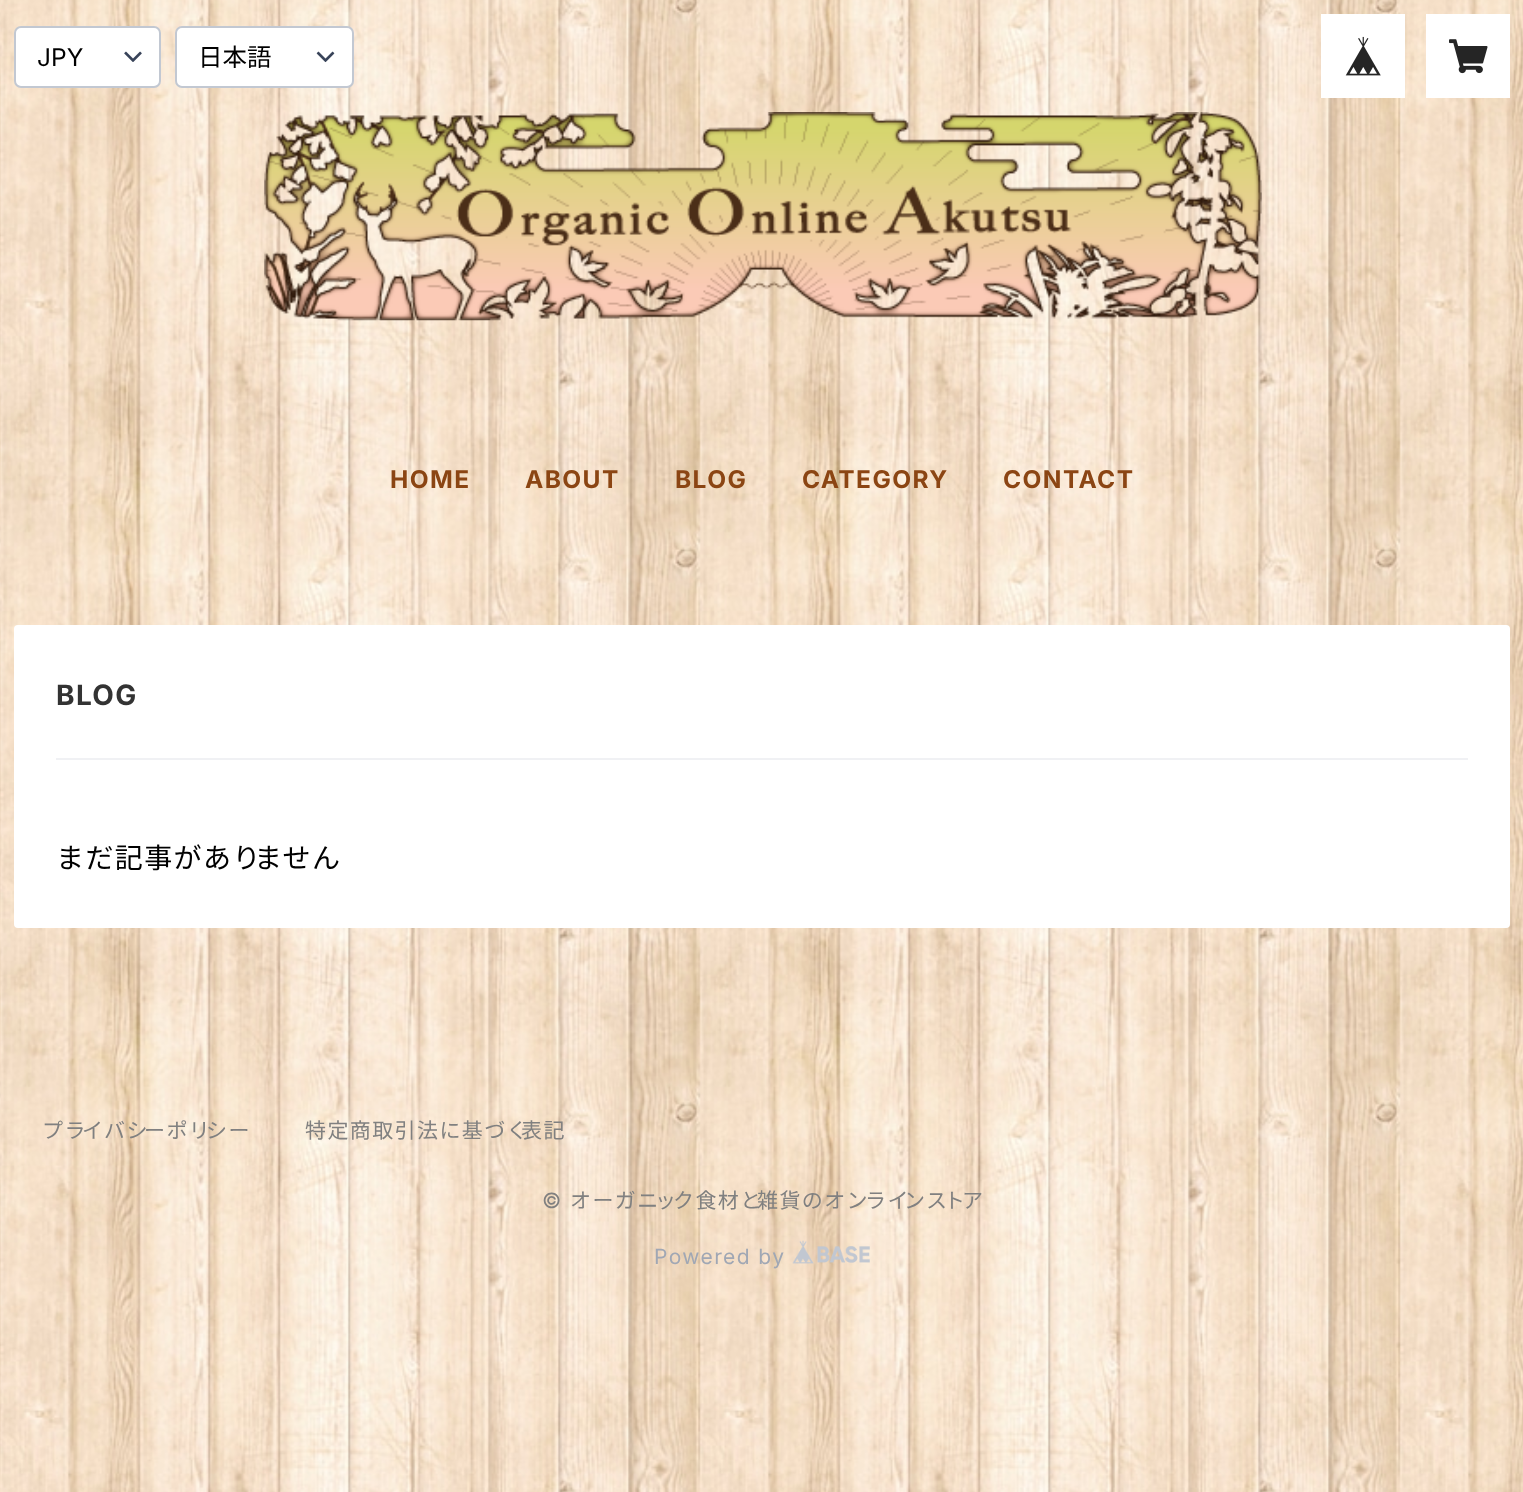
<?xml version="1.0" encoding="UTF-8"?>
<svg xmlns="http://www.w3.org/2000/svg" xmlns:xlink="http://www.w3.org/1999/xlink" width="1523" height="1492">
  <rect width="100%" height="100%" fill="#ffffff" />
  <image x="0" y="0" width="1523" height="1492" xlink:href="image1.png" />
  <rect x="15" y="27" width="145" height="60" rx="6" fill="#ffffff" stroke="#c2c8d2" stroke-width="2" />
  <image x="124" y="51" width="18" height="11" xlink:href="image2.png" />
  <rect x="176" y="27" width="177" height="60" rx="6" fill="#ffffff" stroke="#c2c8d2" stroke-width="2" />
  <image x="316" y="51" width="19" height="12" xlink:href="image3.png" />
  <rect x="1321" y="14" width="84" height="84" fill="#ffffff" />
  <image x="1345" y="36" width="36" height="40" xlink:href="image4.png" />
  <rect x="1426" y="14" width="84" height="84" fill="#ffffff" />
  <image x="1449" y="39" width="39" height="35" xlink:href="image5.png" />
  <image x="264" y="112" width="998" height="209" xlink:href="image6.png" />
  <rect x="14" y="625" width="1496" height="303" rx="4" fill="#ffffff" />
  <rect x="56" y="758" width="1412" height="2" fill="#f0f1f4" />
  <image x="792" y="1240" width="78" height="24" xlink:href="image7.png" />
  <text x="37" y="66" style="font-family: Inter; font-size: 24.5px; fill: #000000">JPY</text>
  <text x="198" y="66" style="font-family: Noto Sans JP; font-size: 24.5px; fill: #000000">日本語</text>
  <text x="390" y="488" style="font-family: Inter; font-size: 24.5px; font-weight: bold; letter-spacing: 1.4px; fill: #8b4513">HOME</text>
  <text x="525" y="488" style="font-family: Inter; font-size: 24.5px; font-weight: bold; letter-spacing: 1.4px; fill: #8b4513">ABOUT</text>
  <text x="675" y="488" style="font-family: Inter; font-size: 24.5px; font-weight: bold; letter-spacing: 1.4px; fill: #8b4513">BLOG</text>
  <text x="802" y="488" style="font-family: Inter; font-size: 24.5px; font-weight: bold; letter-spacing: 1.4px; fill: #8b4513">CATEGORY</text>
  <text x="1003" y="488" style="font-family: Inter; font-size: 24.5px; font-weight: bold; letter-spacing: 1.4px; fill: #8b4513">CONTACT</text>
  <text x="56" y="705" style="font-family: Inter; font-size: 28px; font-weight: bold; letter-spacing: 1.4px; fill: #333333">BLOG</text>
  <text x="56" y="868" style="font-family: Noto Sans JP; font-size: 28px; letter-spacing: 1.4px; fill: #000000">まだ記事があり</text>
  <text x="254" y="868" style="font-family: Noto Sans JP; font-size: 28px; letter-spacing: 1.4px; fill: #000000">ません</text>
  <text x="42" y="1138" style="font-family: Noto Sans JP; font-size: 21px; letter-spacing: 1.4px; fill: #808080">プラ</text>
  <text x="82" y="1138" style="font-family: Noto Sans JP; font-size: 21px; letter-spacing: 1.4px; fill: #808080">イバシ</text>
  <text x="144" y="1138" style="font-family: Noto Sans JP; font-size: 21px; letter-spacing: 1.4px; fill: #808080">ーポリ</text>
  <text x="206" y="1138" style="font-family: Noto Sans JP; font-size: 21px; letter-spacing: 1.4px; fill: #808080">シー</text>
  <text x="305" y="1138" style="font-family: Noto Sans JP; font-size: 21px; letter-spacing: 1.4px; fill: #808080">特定商取引法に基づく</text>
  <text x="521" y="1138" style="font-family: Noto Sans JP; font-size: 21px; letter-spacing: 1.4px; fill: #808080">表記</text>
  <text x="542" y="1208" style="font-family: Inter; font-size: 21px; letter-spacing: 1.4px; fill: #808080">©</text>
  <text x="570" y="1208" style="font-family: Noto Sans JP; font-size: 21px; letter-spacing: 1.4px; fill: #808080">オーガニ</text>
  <text x="655" y="1208" style="font-family: Noto Sans JP; font-size: 21px; letter-spacing: 1.4px; fill: #808080">ッ</text>
  <text x="673" y="1208" style="font-family: Noto Sans JP; font-size: 21px; letter-spacing: 1.4px; fill: #808080">ク食材と</text>
  <text x="757" y="1208" style="font-family: Noto Sans JP; font-size: 21px; letter-spacing: 1.4px; fill: #808080">雑貨のオン</text>
  <text x="865" y="1208" style="font-family: Noto Sans JP; font-size: 21px; letter-spacing: 1.4px; fill: #808080">ライ</text>
  <text x="904" y="1208" style="font-family: Noto Sans JP; font-size: 21px; letter-spacing: 1.4px; fill: #808080">ンス</text>
  <text x="944" y="1208" style="font-family: Noto Sans JP; font-size: 21px; letter-spacing: 1.4px; fill: #808080">ト</text>
  <text x="962" y="1208" style="font-family: Noto Sans JP; font-size: 21px; letter-spacing: 1.4px; fill: #808080">ア</text>
  <text x="654" y="1264" style="font-family: Inter; font-size: 21px; letter-spacing: 1.4px; fill: #a0a7b4">Powered by</text>
</svg>
